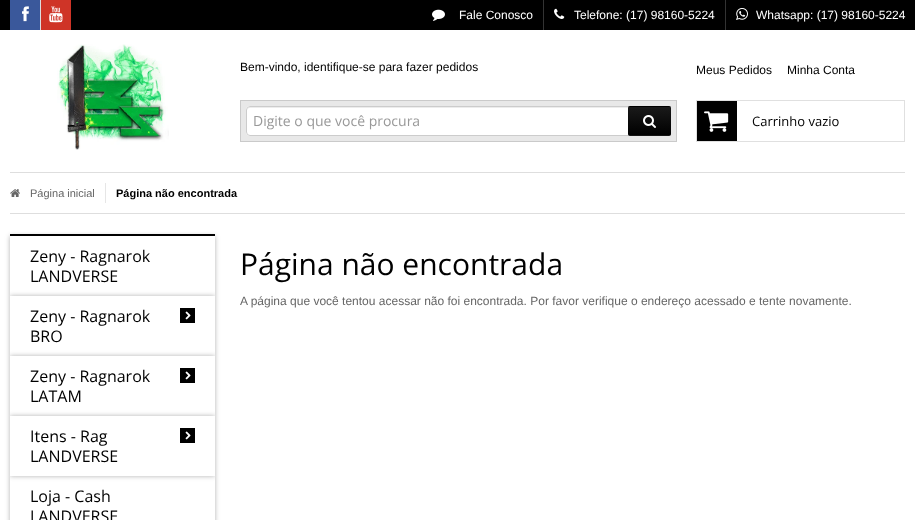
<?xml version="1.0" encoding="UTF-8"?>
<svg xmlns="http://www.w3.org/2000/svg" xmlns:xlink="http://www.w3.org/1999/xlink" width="915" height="520">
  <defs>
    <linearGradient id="g1" gradientUnits="userSpaceOnUse" x1="650" y1="79" x2="650" y2="107"><stop offset="0" stop-color="#ffffff" stop-opacity="0.1" /><stop offset="1" stop-color="#000000" stop-opacity="0.1" /></linearGradient>
    <linearGradient id="g2" gradientUnits="userSpaceOnUse" x1="650" y1="107" x2="650" y2="135"><stop offset="0" stop-color="#ffffff" stop-opacity="0.1" /><stop offset="1" stop-color="#000000" stop-opacity="0.1" /></linearGradient>
    <linearGradient id="g3" gradientUnits="userSpaceOnUse" x1="650" y1="135" x2="650" y2="163"><stop offset="0" stop-color="#ffffff" stop-opacity="0.1" /><stop offset="1" stop-color="#000000" stop-opacity="0.1" /></linearGradient>
    <clipPath id="clip1"><path d="M 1 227 h 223 v 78 h -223 z m 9 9 h 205 v 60 h -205 z" clip-rule="evenodd" /></clipPath>
    <clipPath id="clip2"><path d="M 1 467 h 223 v 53 h -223 z m 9 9 h 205 v 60 h -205 z" clip-rule="evenodd" /></clipPath>
  </defs>
  <rect width="100%" height="100%" fill="#000000" />
  <rect x="10" width="30" height="30" fill="#3a589b" />
  <image x="22" y="6" width="7" height="16" xlink:href="image1.png" />
  <rect x="40" width="1" height="30" fill="#dddddd" />
  <rect x="41" width="30" height="30" fill="#cf3427" />
  <image x="49" y="6" width="14" height="17" xlink:href="image2.png" />
  <image x="432" y="9" width="13" height="12" xlink:href="image3.png" />
  <rect x="543" width="1" height="30" fill="#333333" />
  <image x="554" y="8" width="11" height="11" xlink:href="image4.png" />
  <rect x="725" width="1" height="30" fill="#333333" />
  <image x="736" y="8" width="12" height="12" xlink:href="image5.png" />
  <rect y="30" width="915" height="490" fill="#ffffff" />
  <image x="57" y="44" width="112" height="106" xlink:href="image6.png" />
  <rect x="240.5" y="100.5" width="436" height="41" fill="#e8e8e8" stroke="#cacaca" />
  <rect x="246" y="106" width="414" height="30" rx="4" fill="#ffffff" />
  <path d="M 250 108 h 406 c 2 0 3 1 3 3 c 0 -2 -1 -4 -3 -4 h -406 c -2 0 -3 2 -3 4 c 0 -2 1 -3 3 -3 z" fill="#ececec" />
  <rect x="246.5" y="106.5" width="413" height="29" rx="3.5" fill="none" stroke="#cccccc" />
  <rect x="628" y="106" width="43" height="30" rx="2" fill="#000000" />
  <rect x="628" y="106" width="43" height="1" fill="url(#g1)" />
  <rect x="628" y="107" width="43" height="28" fill="url(#g2)" />
  <rect x="628" y="135" width="43" height="1" fill="url(#g3)" />
  <rect x="628.5" y="106.5" width="42" height="29" rx="1.5" fill="none" stroke="#000000" stroke-opacity="0.13" />
  <image x="643" y="115" width="13" height="13" xlink:href="image7.png" />
  <rect x="696.5" y="100.5" width="208" height="41" fill="none" stroke="#e0e0e0" />
  <rect x="697" y="101" width="40" height="40" fill="#000000" />
  <image x="704" y="111" width="25" height="21" xlink:href="image8.png" />
  <rect x="10" y="172" width="895" height="1" fill="#dedede" />
  <rect x="10" y="213" width="895" height="1" fill="#dedede" />
  <image x="10" y="189" width="10" height="8" xlink:href="image9.png" />
  <rect x="105" y="183" width="1" height="20" fill="#e6e6e6" />
  <rect x="10" y="234" width="205" height="2" fill="#000000" />
  <g clip-path="url(#clip1)">
    <rect x="10" y="236" width="205" height="60" fill="#000000" fill-opacity="0.3" filter="blur(2.5px)" />
  </g>
  <rect x="10" y="296" width="205" height="60" fill="#000000" fill-opacity="0.3" filter="blur(2.5px)" />
  <rect x="10" y="296" width="205" height="60" fill="#ffffff" />
  <rect x="180" y="308" width="15" height="15" fill="#000000" />
  <image x="185" y="311" width="6" height="9" xlink:href="image10.png" />
  <rect x="10" y="356" width="205" height="60" fill="#000000" fill-opacity="0.3" filter="blur(2.5px)" />
  <rect x="10" y="356" width="205" height="60" fill="#ffffff" />
  <rect x="180" y="368" width="15" height="15" fill="#000000" />
  <image x="185" y="371" width="6" height="9" xlink:href="image10.png" />
  <rect x="10" y="416" width="205" height="60" fill="#000000" fill-opacity="0.3" filter="blur(2.5px)" />
  <g clip-path="url(#clip2)">
    <rect x="10" y="476" width="205" height="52" fill="#000000" fill-opacity="0.3" filter="blur(2.5px)" />
  </g>
  <rect x="10" y="416" width="205" height="60" fill="#ffffff" />
  <rect x="180" y="428" width="15" height="15" fill="#000000" />
  <image x="185" y="431" width="6" height="9" xlink:href="image10.png" />
  <text x="459" y="19" style="font-family: Liberation Sans; font-size: 12px; fill: #ffffff">Fale Conosco</text>
  <text x="574" y="19" style="font-family: Liberation Sans; font-size: 12px; fill: #ffffff">Telefone: (17) 98160-5224</text>
  <text x="756" y="19" style="font-family: Liberation Sans; font-size: 12px; fill: #ffffff">Whatsapp: (17) 98160-5224</text>
  <text x="240" y="71" style="font-family: Liberation Sans; font-size: 12px; fill: #000000">Bem-vindo, identifique-se para fazer pedidos</text>
  <text x="696" y="74" style="font-family: Liberation Sans; font-size: 12px; fill: #000000">Meus Pedidos</text>
  <text x="787" y="74" style="font-family: Liberation Sans; font-size: 12px; fill: #000000">Minha Conta</text>
  <text x="253" y="126" style="font-family: Open Sans; font-size: 14px; fill: #999999">Digite o que você procura</text>
  <text x="752" y="126" style="font-family: Open Sans; font-size: 13px; fill: #000000">Carrinho vazio</text>
  <text x="30" y="197" style="font-family: Liberation Sans; font-size: 11px; fill: #666666">Página inicial</text>
  <text x="116" y="197" style="font-family: Liberation Sans; font-size: 11px; font-weight: bold; fill: #000000">Página não encontrada</text>
  <text x="30" y="262" style="font-family: Open Sans; font-size: 16px; fill: #000000">Zeny - Ragnarok</text>
  <text x="30" y="282" style="font-family: Open Sans; font-size: 16px; fill: #000000">LANDVERSE</text>
  <text x="30" y="322" style="font-family: Open Sans; font-size: 16px; fill: #000000">Zeny - Ragnarok</text>
  <text x="30" y="342" style="font-family: Open Sans; font-size: 16px; fill: #000000">BRO</text>
  <text x="30" y="382" style="font-family: Open Sans; font-size: 16px; fill: #000000">Zeny - Ragnarok</text>
  <text x="30" y="402" style="font-family: Open Sans; font-size: 16px; fill: #000000">LATAM</text>
  <text x="30" y="442" style="font-family: Open Sans; font-size: 16px; fill: #000000">Itens - Rag</text>
  <text x="30" y="462" style="font-family: Open Sans; font-size: 16px; fill: #000000">LANDVERSE</text>
  <text x="30" y="502" style="font-family: Open Sans; font-size: 16px; fill: #000000">Loja - Cash</text>
  <text x="30" y="522" style="font-family: Open Sans; font-size: 16px; fill: #000000">LANDVERSE</text>
  <text x="240" y="275" style="font-family: Open Sans; font-size: 30px; fill: #000000">Página não encontrada</text>
  <text x="240" y="305" style="font-family: Liberation Sans; font-size: 12px; fill: #666666">A página que você tentou acessar não foi encontrada. Por favor verifique o endereço acessado e tente novamente.</text>
</svg>
